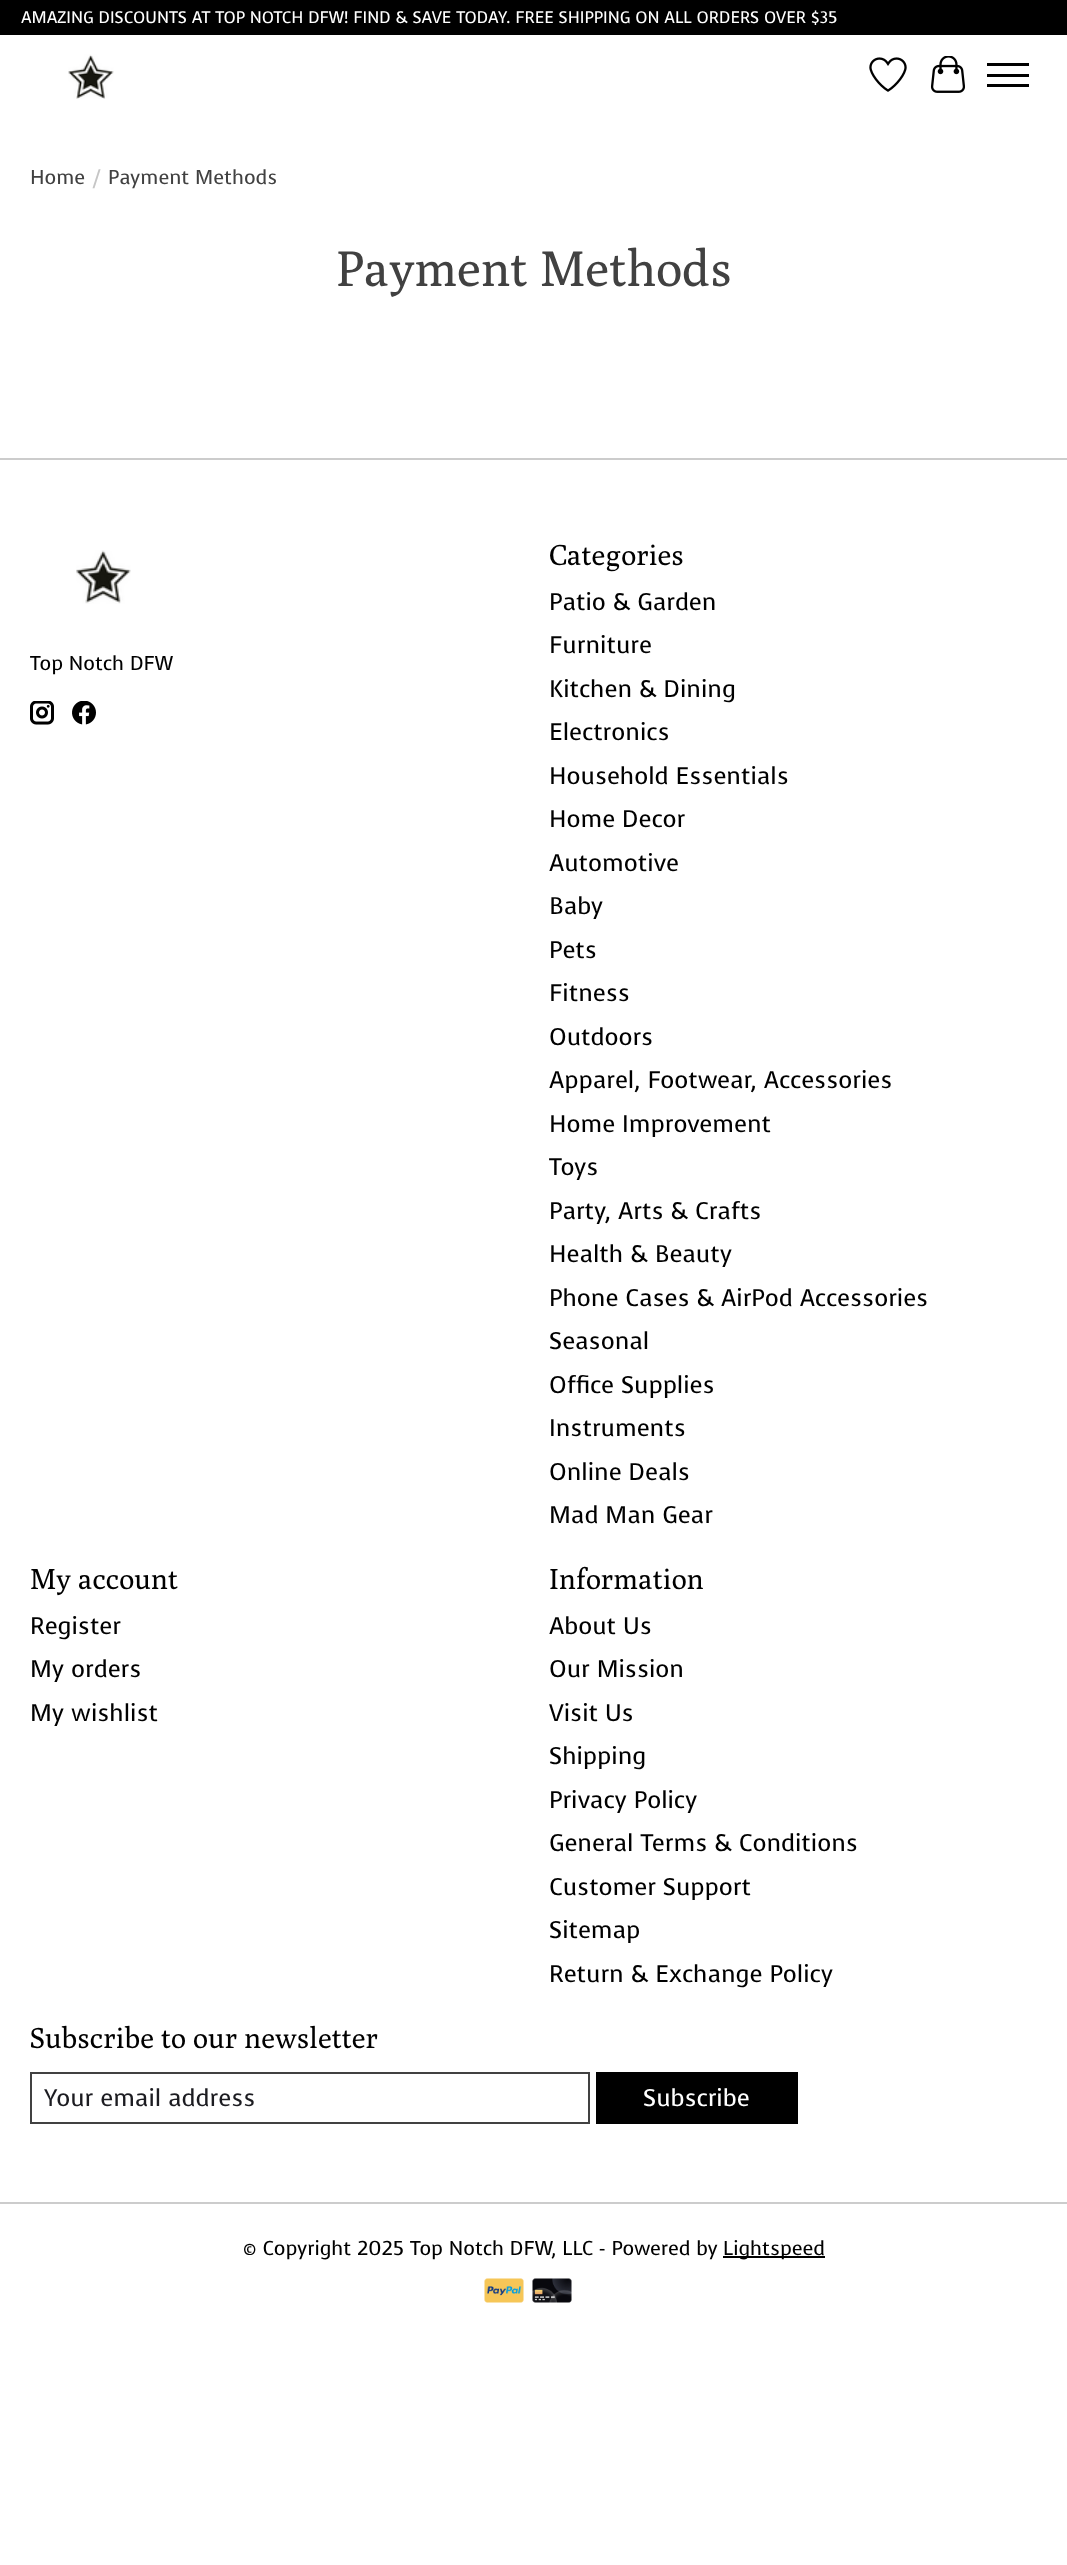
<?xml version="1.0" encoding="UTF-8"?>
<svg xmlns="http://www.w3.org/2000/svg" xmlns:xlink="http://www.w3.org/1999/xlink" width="1067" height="2565">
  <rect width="100%" height="100%" fill="#ffffff" />
  <rect width="1067" height="35" fill="#000000" />
  <image x="68" y="54" width="46" height="45" xlink:href="image1.png" />
  <image x="869" y="57" width="38" height="35" xlink:href="image2.png" />
  <image x="930" y="56" width="35" height="37" xlink:href="image3.png" />
  <rect x="987" y="74" width="42" height="3" fill="#000000" />
  <rect x="987" y="63" width="42" height="3" fill="#000000" />
  <rect x="987" y="84" width="42" height="3" fill="#000000" />
  <rect y="458" width="1067" height="2" fill="#cccccc" />
  <image x="76" y="550" width="55" height="54" xlink:href="image4.png" />
  <image x="30" y="701" width="24" height="24" xlink:href="image5.png" />
  <image x="72" y="701" width="24" height="24" xlink:href="image6.png" />
  <rect x="31" y="2073" width="558" height="50" fill="none" stroke="#414141" stroke-width="2" />
  <rect x="596" y="2072" width="202" height="52" fill="#000000" />
  <rect y="2202" width="1067" height="2" fill="#cccccc" />
  <rect x="723" y="2256" width="102" height="2" fill="#000000" />
  <image x="484" y="2278" width="40" height="25" xlink:href="image7.png" />
  <image x="532" y="2278" width="40" height="25" xlink:href="image8.png" />
  <text x="21" y="23" style="font-family: Voces; font-size: 16.65px; fill: #ffffff">AMAZING DISCOUNTS AT TOP NOTCH DFW! FIND &amp; SAVE TODAY. FREE SHIPPING ON ALL ORDERS OVER $35</text>
  <text x="30" y="184" style="font-family: Voces; font-size: 20px; fill: #414141">Home</text>
  <text x="93" y="184" style="font-family: Voces; font-size: 20px; fill: #c6c6c6">/</text>
  <text x="108" y="184" style="font-family: Voces; font-size: 20px; fill: #414141">Payment Methods</text>
  <text x="336" y="286" style="font-family: Poly; font-size: 49.75px; fill: #414141">Payment Methods</text>
  <text x="30" y="670" style="font-family: Voces; font-size: 20px; fill: #000000">Top Notch DFW</text>
  <text x="549" y="565" style="font-family: Poly; font-size: 28.75px; fill: #000000">Categories</text>
  <text x="549" y="610" style="font-family: Voces; font-size: 24px; fill: #000000">Patio &amp; Garden</text>
  <text x="549" y="653" style="font-family: Voces; font-size: 24px; fill: #000000">Furniture</text>
  <text x="549" y="697" style="font-family: Voces; font-size: 24px; fill: #000000">Kitchen &amp; Dining</text>
  <text x="549" y="740" style="font-family: Voces; font-size: 24px; fill: #000000">Electronics</text>
  <text x="549" y="784" style="font-family: Voces; font-size: 24px; fill: #000000">Household Essentials</text>
  <text x="549" y="827" style="font-family: Voces; font-size: 24px; fill: #000000">Home Decor</text>
  <text x="549" y="871" style="font-family: Voces; font-size: 24px; fill: #000000">Automotive</text>
  <text x="549" y="914" style="font-family: Voces; font-size: 24px; fill: #000000">Baby</text>
  <text x="549" y="958" style="font-family: Voces; font-size: 24px; fill: #000000">Pets</text>
  <text x="549" y="1001" style="font-family: Voces; font-size: 24px; fill: #000000">Fitness</text>
  <text x="549" y="1045" style="font-family: Voces; font-size: 24px; fill: #000000">Outdoors</text>
  <text x="549" y="1088" style="font-family: Voces; font-size: 24px; fill: #000000">Apparel, Footwear, Accessories</text>
  <text x="549" y="1132" style="font-family: Voces; font-size: 24px; fill: #000000">Home Improvement</text>
  <text x="549" y="1175" style="font-family: Voces; font-size: 24px; fill: #000000">Toys</text>
  <text x="549" y="1219" style="font-family: Voces; font-size: 24px; fill: #000000">Party, Arts &amp; Crafts</text>
  <text x="549" y="1262" style="font-family: Voces; font-size: 24px; fill: #000000">Health &amp; Beauty</text>
  <text x="549" y="1306" style="font-family: Voces; font-size: 24px; fill: #000000">Phone Cases &amp; AirPod Accessories</text>
  <text x="549" y="1349" style="font-family: Voces; font-size: 24px; fill: #000000">Seasonal</text>
  <text x="549" y="1393" style="font-family: Voces; font-size: 24px; fill: #000000">Office Supplies</text>
  <text x="549" y="1436" style="font-family: Voces; font-size: 24px; fill: #000000">Instruments</text>
  <text x="549" y="1480" style="font-family: Voces; font-size: 24px; fill: #000000">Online Deals</text>
  <text x="549" y="1523" style="font-family: Voces; font-size: 24px; fill: #000000">Mad Man Gear</text>
  <text x="30" y="1589" style="font-family: Poly; font-size: 28.75px; fill: #000000">My account</text>
  <text x="30" y="1634" style="font-family: Voces; font-size: 24px; fill: #000000">Register</text>
  <text x="30" y="1677" style="font-family: Voces; font-size: 24px; fill: #000000">My orders</text>
  <text x="30" y="1721" style="font-family: Voces; font-size: 24px; fill: #000000">My wishlist</text>
  <text x="549" y="1589" style="font-family: Poly; font-size: 28.75px; fill: #000000">Information</text>
  <text x="549" y="1634" style="font-family: Voces; font-size: 24px; fill: #000000">About Us</text>
  <text x="549" y="1677" style="font-family: Voces; font-size: 24px; fill: #000000">Our Mission</text>
  <text x="549" y="1721" style="font-family: Voces; font-size: 24px; fill: #000000">Visit Us</text>
  <text x="549" y="1764" style="font-family: Voces; font-size: 24px; fill: #000000">Shipping</text>
  <text x="549" y="1808" style="font-family: Voces; font-size: 24px; fill: #000000">Privacy Policy</text>
  <text x="549" y="1851" style="font-family: Voces; font-size: 24px; fill: #000000">General Terms &amp; Conditions</text>
  <text x="549" y="1895" style="font-family: Voces; font-size: 24px; fill: #000000">Customer Support</text>
  <text x="549" y="1938" style="font-family: Voces; font-size: 24px; fill: #000000">Sitemap</text>
  <text x="549" y="1982" style="font-family: Voces; font-size: 24px; fill: #000000">Return &amp; Exchange Policy</text>
  <text x="30" y="2048" style="font-family: Poly; font-size: 28.75px; fill: #000000">Subscribe to our newsletter</text>
  <text x="44" y="2106" style="font-family: Voces; font-size: 24px; fill: #1c1c21">Your email address</text>
  <text x="643" y="2106" style="font-family: Voces; font-size: 24px; fill: #ffffff">Subscribe</text>
  <text x="243" y="2255" style="font-family: Voces; font-size: 20px; fill: #000000">© Copyright 2025 Top Notch DFW, LLC - Powered by</text>
  <text x="723" y="2255" style="font-family: Voces; font-size: 20px; fill: #000000">Lightspeed</text>
</svg>
